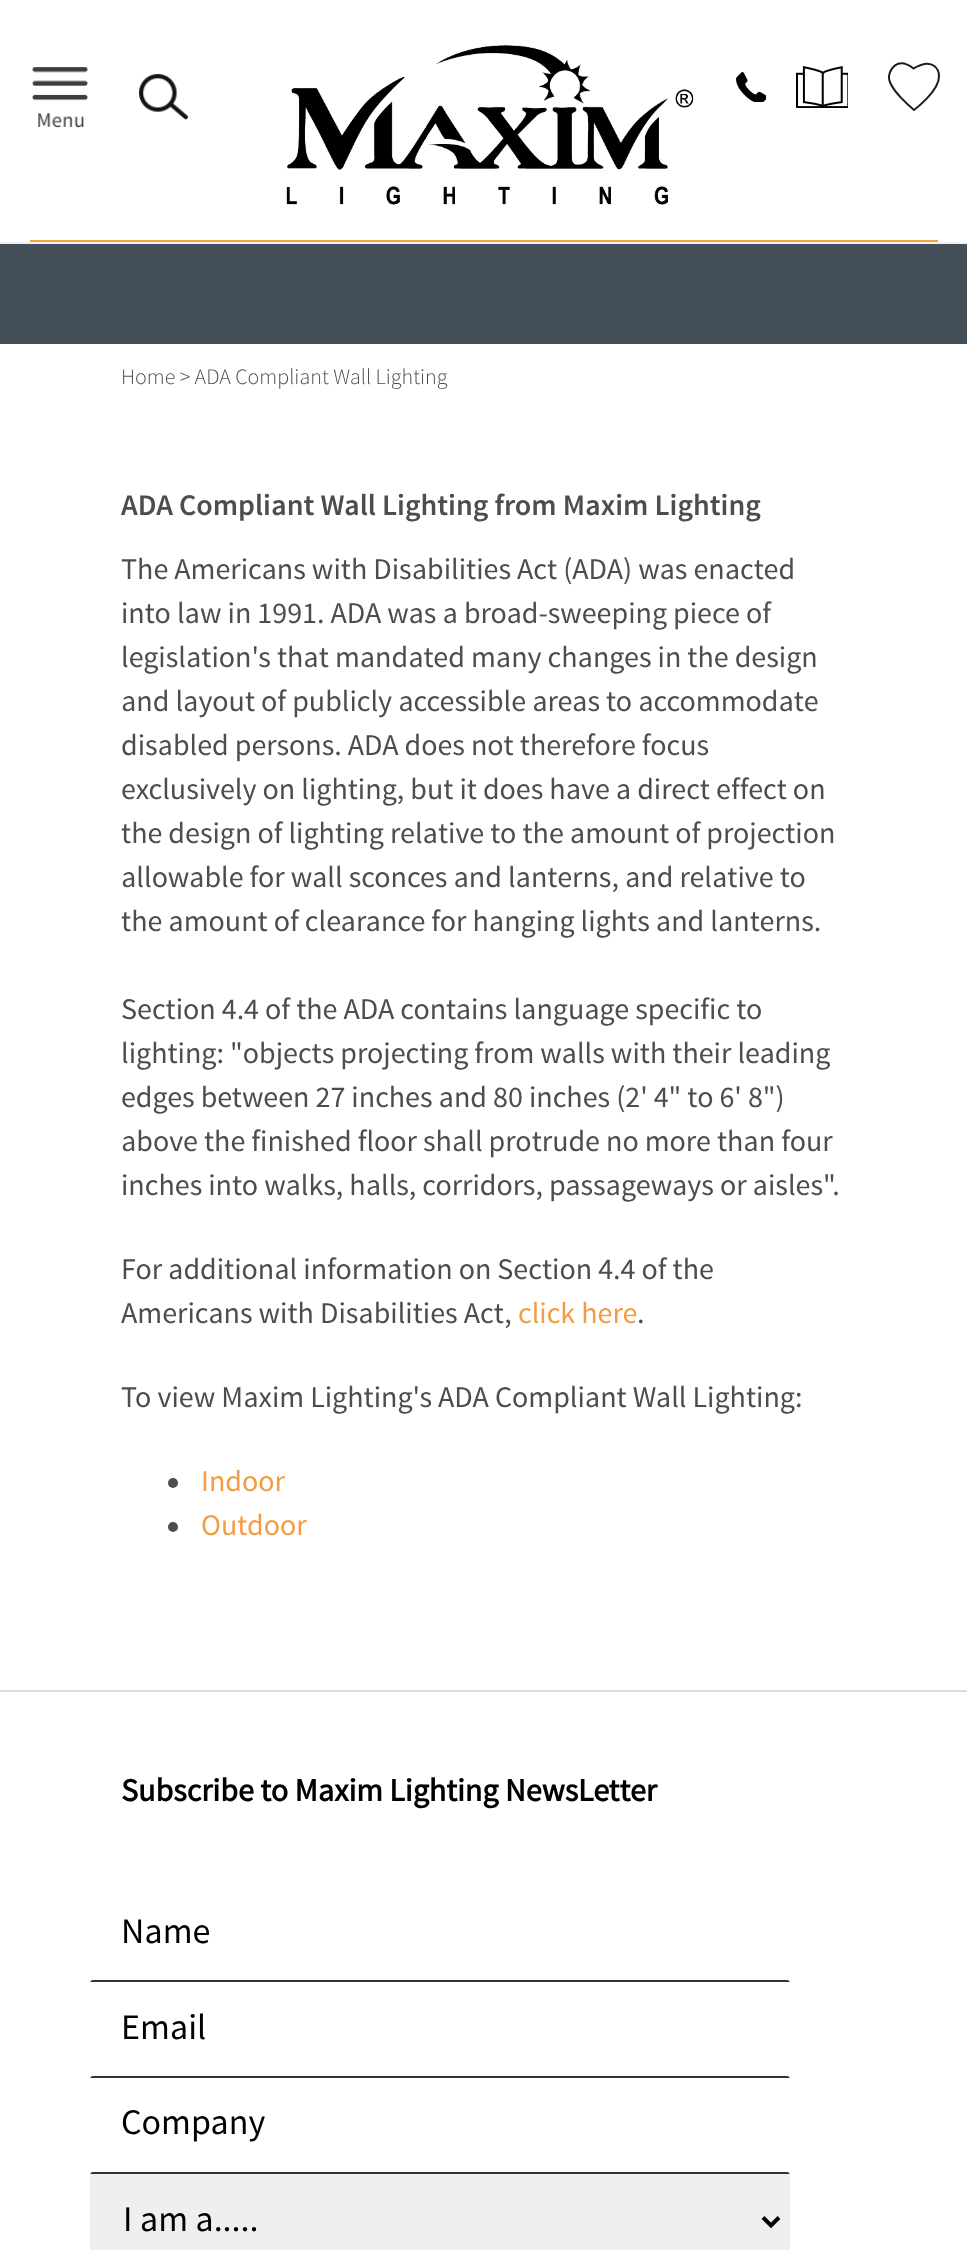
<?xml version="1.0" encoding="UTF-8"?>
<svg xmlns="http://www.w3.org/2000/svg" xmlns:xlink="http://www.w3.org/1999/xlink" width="967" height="2250">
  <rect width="100%" height="100%" fill="#ffffff" />
  <rect y="242" width="967" height="2" fill="#f1f1f1" />
  <rect x="30" y="240" width="908" height="2" fill="#f5a23f" />
  <image x="32" y="67" width="56" height="61" xlink:href="image1.png" />
  <image x="139" y="74" width="49" height="46" xlink:href="image2.png" />
  <image x="286" y="45" width="408" height="160" xlink:href="image3.png" />
  <image x="736" y="72" width="30" height="30" xlink:href="image4.png" />
  <image x="796" y="66" width="52" height="42" xlink:href="image5.png" />
  <path d="M 914 110 c 0 0 -26.5 -21.5 -25 -34 c 1 -6 8 -20.5 24.5 -7.5 c 21.5 -12.5 25.5 3.5 25.5 7.5 c 0.5 15 -25 34 -25 34 z" fill="none" stroke="#1d1d1d" stroke-width="2" stroke-linecap="round" />
  <rect y="244" width="967" height="100" fill="#454f59" />
  <circle cx="173" cy="1483" r="5" fill="#4e4d4d" />
  <circle cx="173" cy="1527" r="5" fill="#4e4d4d" />
  <rect y="1690" width="967" height="2" fill="#dbdbdb" />
  <path d="M 790 1982 h -700 l 2 -2 h 696 z" fill="#333333" />
  <path d="M 790 2078 h -700 l 2 -2 h 696 z" fill="#333333" />
  <path d="M 790 2174 h -700 l 2 -2 h 696 z" fill="#333333" />
  <rect x="90" y="2174" width="700" height="76" fill="#efefef" />
  <path d="M 763 2217.5 l 8 8 l 8 -8" fill="none" stroke="#000000" stroke-width="4" />
  <text x="121" y="384" style="font-family: Source Sans Pro; font-size: 22px; font-weight: 300; fill: #4e4d4d">Home &gt; ADA Compliant Wall Lighting</text>
  <text x="121" y="515" style="font-family: Source Sans Pro; font-size: 30px; font-weight: 600; fill: #4e4d4d">ADA Compliant Wall Lighting from Maxim Lighting</text>
  <text x="121" y="579" style="font-family: Source Sans Pro; font-size: 30px; fill: #4e4d4d">The Americans with Disabilities Act (ADA) was enacted</text>
  <text x="121" y="623" style="font-family: Source Sans Pro; font-size: 30px; fill: #4e4d4d">into law in 1991. ADA was a broad-sweeping piece of</text>
  <text x="121" y="667" style="font-family: Source Sans Pro; font-size: 30px; fill: #4e4d4d">legislation's that mandated many changes in the design</text>
  <text x="121" y="711" style="font-family: Source Sans Pro; font-size: 30px; fill: #4e4d4d">and layout of publicly accessible areas to accommodate</text>
  <text x="121" y="755" style="font-family: Source Sans Pro; font-size: 30px; fill: #4e4d4d">disabled persons. ADA does not therefore focus</text>
  <text x="121" y="799" style="font-family: Source Sans Pro; font-size: 30px; fill: #4e4d4d">exclusively on lighting, but it does have a direct effect on</text>
  <text x="121" y="843" style="font-family: Source Sans Pro; font-size: 30px; fill: #4e4d4d">the design of lighting relative to the amount of projection</text>
  <text x="121" y="887" style="font-family: Source Sans Pro; font-size: 30px; fill: #4e4d4d">allowable for wall sconces and lanterns, and relative to</text>
  <text x="121" y="931" style="font-family: Source Sans Pro; font-size: 30px; fill: #4e4d4d">the amount of clearance for hanging lights and lanterns.</text>
  <text x="121" y="1019" style="font-family: Source Sans Pro; font-size: 30px; fill: #4e4d4d">Section 4.4 of the ADA contains language specific to</text>
  <text x="121" y="1063" style="font-family: Source Sans Pro; font-size: 30px; fill: #4e4d4d">lighting: "objects projecting from walls with their leading</text>
  <text x="121" y="1107" style="font-family: Source Sans Pro; font-size: 30px; fill: #4e4d4d">edges between 27 inches and 80 inches (2' 4" to 6' 8")</text>
  <text x="121" y="1151" style="font-family: Source Sans Pro; font-size: 30px; fill: #4e4d4d">above the finished floor shall protrude no more than four</text>
  <text x="121" y="1195" style="font-family: Source Sans Pro; font-size: 30px; fill: #4e4d4d">inches into walks, halls, corridors, passageways or aisles".</text>
  <text x="121" y="1279" style="font-family: Source Sans Pro; font-size: 30px; fill: #4e4d4d">For additional information on Section 4.4 of the</text>
  <text x="121" y="1323" style="font-family: Source Sans Pro; font-size: 30px; fill: #4e4d4d">Americans with Disabilities Act,</text>
  <text x="518" y="1323" style="font-family: Source Sans Pro; font-size: 30px; fill: #f29c43">click here</text>
  <text x="637" y="1323" style="font-family: Source Sans Pro; font-size: 30px; fill: #4e4d4d">.</text>
  <text x="121" y="1407" style="font-family: Source Sans Pro; font-size: 30px; fill: #4e4d4d">To view Maxim Lighting's ADA Compliant Wall Lighting:</text>
  <text x="201" y="1491" style="font-family: Source Sans Pro; font-size: 30px; fill: #f29c43">Indoor</text>
  <text x="201" y="1535" style="font-family: Source Sans Pro; font-size: 30px; fill: #f29c43">Outdoor</text>
  <text x="121" y="1801" style="font-family: Source Sans Pro; font-size: 32px; font-weight: bold; fill: #000000">Subscribe to Maxim Lighting NewsLetter</text>
  <text x="121" y="1943" style="font-family: Source Sans Pro; font-size: 36px; fill: #000000">Name</text>
  <text x="121" y="2039" style="font-family: Source Sans Pro; font-size: 36px; fill: #000000">Email</text>
  <text x="121" y="2134" style="font-family: Source Sans Pro; font-size: 36px; fill: #000000">Company</text>
  <text x="123" y="2231" style="font-family: Source Sans Pro; font-size: 36px; fill: #000000">I am a.....</text>
</svg>
